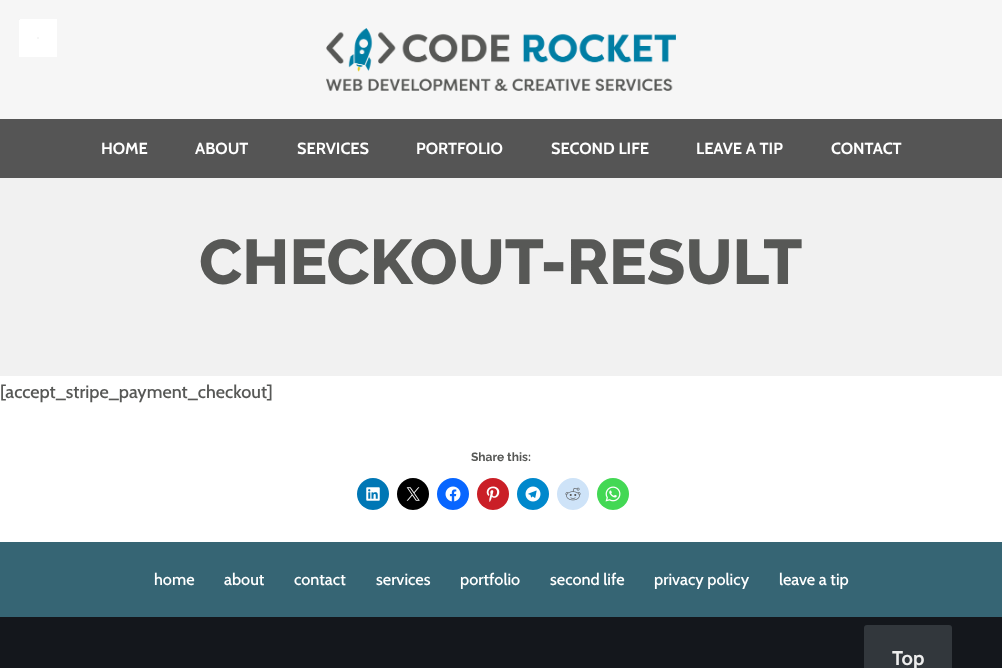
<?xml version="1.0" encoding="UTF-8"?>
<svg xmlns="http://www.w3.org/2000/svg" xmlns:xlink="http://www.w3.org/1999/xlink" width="1002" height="668">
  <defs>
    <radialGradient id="g1" gradientUnits="userSpaceOnUse" cx="38" cy="38" r="27"><stop offset="0.04" stop-color="#f5f5f5" /><stop offset="0.04" stop-color="#ffffff" /></radialGradient>
    <radialGradient id="g2" gradientUnits="userSpaceOnUse" cx="19" cy="19" r="27"><stop offset="0.04" stop-color="#f5f5f5" /><stop offset="0.04" stop-color="#f5f5f5" stop-opacity="0" /></radialGradient>
    <radialGradient id="g3" gradientUnits="userSpaceOnUse" cx="501" cy="149" r="11"><stop offset="0.07" stop-color="#444444" /><stop offset="0.07" stop-color="#555555" /></radialGradient>
    <radialGradient id="g4" gradientUnits="userSpaceOnUse" cx="501" cy="580" r="11"><stop offset="0.07" stop-color="#305a68" /><stop offset="0.07" stop-color="#366574" /></radialGradient>
  </defs>
  <rect width="100%" height="100%" fill="#ffffff" />
  <rect width="1002" height="119" fill="#f6f6f6" />
  <rect x="19" y="19" width="38" height="38" fill="url(#g1)" />
  <rect x="18" y="19" width="2" height="1" fill="url(#g2)" />
  <image x="326" y="28" width="350" height="63" xlink:href="image1.png" />
  <rect y="119" width="1002" height="59" fill="#555555" />
  <rect x="500" y="148" width="2" height="2" fill="url(#g3)" />
  <rect y="178" width="1002" height="198" fill="#f1f1f1" />
  <circle cx="373" cy="494" r="16" fill="#0077b5" />
  <image x="366" y="487" width="14" height="14" xlink:href="image2.png" />
  <circle cx="413" cy="494" r="16" fill="#000000" />
  <image x="406" y="487" width="14" height="14" xlink:href="image3.png" />
  <circle cx="453" cy="494" r="16" fill="#0866ff" />
  <image x="445" y="486" width="16" height="16" xlink:href="image4.png" />
  <circle cx="493" cy="494" r="16" fill="#ca1f27" />
  <image x="486" y="486" width="14" height="16" xlink:href="image5.png" />
  <circle cx="533" cy="494" r="16" fill="#0088cc" />
  <image x="525" y="486" width="16" height="16" xlink:href="image6.png" />
  <circle cx="573" cy="494" r="16" fill="#cee3f8" />
  <image x="565" y="487" width="16" height="14" xlink:href="image7.png" />
  <circle cx="613" cy="494" r="16" fill="#43d854" />
  <image x="605" y="486" width="16" height="16" xlink:href="image8.png" />
  <rect y="542" width="1002" height="75" fill="#366574" />
  <rect x="500" y="579" width="2" height="2" fill="url(#g4)" />
  <rect y="617" width="1002" height="51" fill="#14171c" />
  <rect x="864" y="625" width="88" height="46" rx="3" fill="#32373c" />
  <text x="101" y="154" style="font-family: Cabin; font-size: 16.25px; font-weight: bold; fill: #ffffff">HOME</text>
  <text x="195" y="154" style="font-family: Cabin; font-size: 16.25px; font-weight: bold; fill: #ffffff">ABOUT</text>
  <text x="297" y="154" style="font-family: Cabin; font-size: 16.25px; font-weight: bold; fill: #ffffff">SERVICES</text>
  <text x="416" y="154" style="font-family: Cabin; font-size: 16.25px; font-weight: bold; fill: #ffffff">PORTFOLIO</text>
  <text x="551" y="154" style="font-family: Cabin; font-size: 16.25px; font-weight: bold; fill: #ffffff">SECOND LIFE</text>
  <text x="696" y="154" style="font-family: Cabin; font-size: 16.25px; font-weight: bold; fill: #ffffff">LEAVE A TIP</text>
  <text x="831" y="154" style="font-family: Cabin; font-size: 16.25px; font-weight: bold; fill: #ffffff">CONTACT</text>
  <text x="199" y="284" style="font-family: Raleway; font-size: 63px; font-weight: 800; fill: #575856">CHECKOUT-RESULT</text>
  <text x="0" y="398" style="font-family: Cabin; font-size: 18px; font-weight: 500; fill: #575856">[accept_stripe_payment_checkout]</text>
  <text x="471" y="461" style="font-family: Raleway; font-size: 12px; font-weight: bold; fill: #575856">Share this:</text>
  <text x="154" y="585" style="font-family: Cabin; font-size: 16.25px; font-weight: 500; fill: #ffffff">home</text>
  <text x="224" y="585" style="font-family: Cabin; font-size: 16.25px; font-weight: 500; fill: #ffffff">about</text>
  <text x="294" y="585" style="font-family: Cabin; font-size: 16.25px; font-weight: 500; fill: #ffffff">contact</text>
  <text x="376" y="585" style="font-family: Cabin; font-size: 16.25px; font-weight: 500; fill: #ffffff">services</text>
  <text x="460" y="585" style="font-family: Cabin; font-size: 16.25px; font-weight: 500; fill: #ffffff">portfolio</text>
  <text x="550" y="585" style="font-family: Cabin; font-size: 16.25px; font-weight: 500; fill: #ffffff">second life</text>
  <text x="654" y="585" style="font-family: Cabin; font-size: 16.25px; font-weight: 500; fill: #ffffff">privacy policy</text>
  <text x="779" y="585" style="font-family: Cabin; font-size: 16.25px; font-weight: 500; fill: #ffffff">leave a tip</text>
  <text x="892" y="665" style="font-family: Cabin; font-size: 20px; font-weight: bold; fill: #ededed">Top</text>
</svg>
